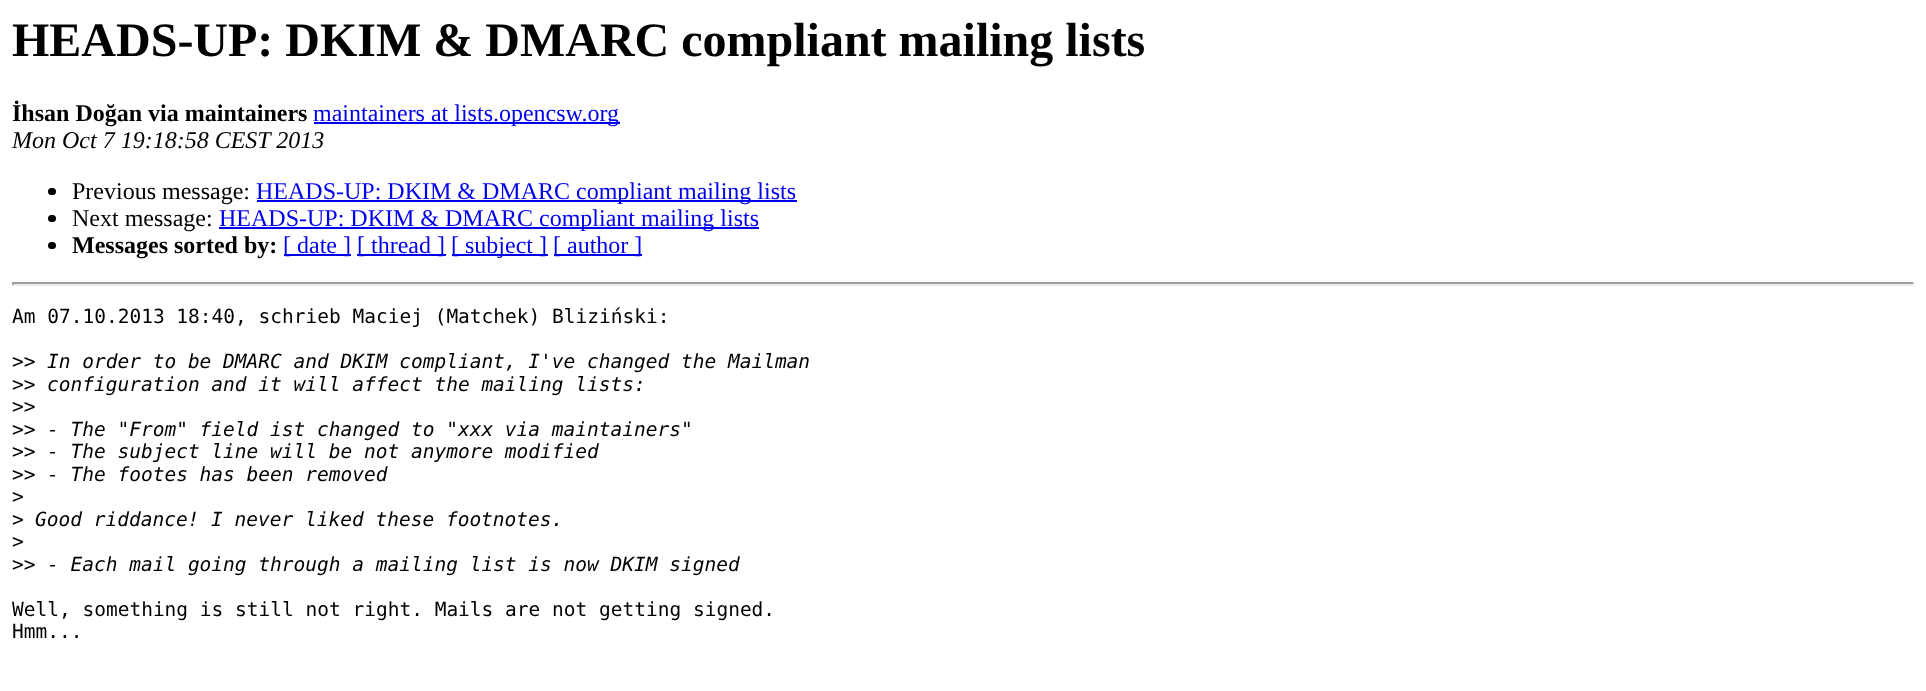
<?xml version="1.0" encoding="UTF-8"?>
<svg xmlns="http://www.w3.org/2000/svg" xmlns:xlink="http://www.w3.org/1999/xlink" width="1926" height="691">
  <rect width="100%" height="100%" fill="#ffffff" />
  <rect x="314" y="122" width="306" height="2" fill="#0000ee" />
  <rect x="48" y="188" width="8" height="7" rx="3.5" fill="#000000" />
  <rect x="257" y="200" width="540" height="2" fill="#0000ee" />
  <rect x="48" y="215" width="8" height="7" rx="3.5" fill="#000000" />
  <rect x="219" y="227" width="540" height="2" fill="#0000ee" />
  <rect x="48" y="242" width="8" height="7" rx="3.5" fill="#000000" />
  <rect x="284" y="254" width="67" height="2" fill="#0000ee" />
  <rect x="357" y="254" width="89" height="2" fill="#0000ee" />
  <rect x="452" y="254" width="96" height="2" fill="#0000ee" />
  <rect x="554" y="254" width="88" height="2" fill="#0000ee" />
  <rect x="12" y="282" width="1902" height="2" fill="#9f9f9f" />
  <rect x="1913" y="282" width="2" height="3" fill="#eeeeee" />
  <rect x="12" y="284" width="1902" height="2" fill="#eeeeee" />
  <rect x="12" y="282" width="2" height="3" fill="#9f9f9f" />
  <text x="12" y="56" style="font-family: Liberation Serif; font-size: 48px; font-weight: bold; fill: #000000">HEADS-UP: DKIM &amp; DMARC compliant mailing lists</text>
  <text x="12" y="121" style="font-family: Liberation Serif; font-size: 24px; font-weight: bold; fill: #000000">İhsan Doğan via maintainers</text>
  <text x="313" y="121" style="font-family: Liberation Serif; font-size: 24px; fill: #0000ee">maintainers at lists.opencsw.org</text>
  <text x="12" y="148" style="font-family: Liberation Serif; font-size: 24px; font-style: italic; fill: #000000">Mon Oct 7 19:18:58 CEST 2013</text>
  <text x="72" y="199" style="font-family: Liberation Serif; font-size: 24px; fill: #000000">Previous message:</text>
  <text x="256" y="199" style="font-family: Liberation Serif; font-size: 24px; fill: #0000ee">HEADS-UP: DKIM &amp; DMARC compliant mailing lists</text>
  <text x="72" y="226" style="font-family: Liberation Serif; font-size: 24px; fill: #000000">Next message:</text>
  <text x="219" y="226" style="font-family: Liberation Serif; font-size: 24px; fill: #0000ee">HEADS-UP: DKIM &amp; DMARC compliant mailing lists</text>
  <text x="72" y="253" style="font-family: Liberation Serif; font-size: 24px; font-weight: bold; fill: #000000">Messages sorted by:</text>
  <text x="283" y="253" style="font-family: Liberation Serif; font-size: 24px; fill: #0000ee">[ date ]</text>
  <text x="357" y="253" style="font-family: Liberation Serif; font-size: 24px; fill: #0000ee">[ thread ]</text>
  <text x="451" y="253" style="font-family: Liberation Serif; font-size: 24px; fill: #0000ee">[ subject ]</text>
  <text x="553" y="253" style="font-family: Liberation Serif; font-size: 24px; fill: #0000ee">[ author ]</text>
  <text x="12" y="323" style="font-family: DejaVu Sans Mono; font-size: 19.5px; fill: #000000">Am 07.10.2013 18:40, schrieb Maciej (Matchek) Bliziński:</text>
  <text x="12" y="368" style="font-family: DejaVu Sans Mono; font-size: 19.5px; fill: #000000">&gt;&gt;</text>
  <text x="47" y="368" style="font-family: DejaVu Sans Mono; font-size: 19.5px; font-style: italic; fill: #000000">In order to be DMARC and DKIM compliant, I've changed the Mailman</text>
  <text x="12" y="391" style="font-family: DejaVu Sans Mono; font-size: 19.5px; fill: #000000">&gt;&gt;</text>
  <text x="47" y="391" style="font-family: DejaVu Sans Mono; font-size: 19.5px; font-style: italic; fill: #000000">configuration and it will affect the mailing lists:</text>
  <text x="12" y="413" style="font-family: DejaVu Sans Mono; font-size: 19.5px; fill: #000000">&gt;&gt;</text>
  <text x="12" y="436" style="font-family: DejaVu Sans Mono; font-size: 19.5px; fill: #000000">&gt;&gt;</text>
  <text x="47" y="436" style="font-family: DejaVu Sans Mono; font-size: 19.5px; font-style: italic; fill: #000000">- The "From" field ist changed to "xxx via maintainers"</text>
  <text x="12" y="458" style="font-family: DejaVu Sans Mono; font-size: 19.5px; fill: #000000">&gt;&gt;</text>
  <text x="47" y="458" style="font-family: DejaVu Sans Mono; font-size: 19.5px; font-style: italic; fill: #000000">- The subject line will be not anymore modified</text>
  <text x="12" y="481" style="font-family: DejaVu Sans Mono; font-size: 19.5px; fill: #000000">&gt;&gt;</text>
  <text x="47" y="481" style="font-family: DejaVu Sans Mono; font-size: 19.5px; font-style: italic; fill: #000000">- The footes has been removed</text>
  <text x="12" y="503" style="font-family: DejaVu Sans Mono; font-size: 19.5px; fill: #000000">&gt;</text>
  <text x="12" y="526" style="font-family: DejaVu Sans Mono; font-size: 19.5px; fill: #000000">&gt;</text>
  <text x="35" y="526" style="font-family: DejaVu Sans Mono; font-size: 19.5px; font-style: italic; fill: #000000">Good riddance! I never liked these footnotes.</text>
  <text x="12" y="548" style="font-family: DejaVu Sans Mono; font-size: 19.5px; fill: #000000">&gt;</text>
  <text x="12" y="571" style="font-family: DejaVu Sans Mono; font-size: 19.5px; fill: #000000">&gt;&gt;</text>
  <text x="47" y="571" style="font-family: DejaVu Sans Mono; font-size: 19.5px; font-style: italic; fill: #000000">- Each mail going through a mailing list is now DKIM signed</text>
  <text x="12" y="616" style="font-family: DejaVu Sans Mono; font-size: 19.5px; fill: #000000">Well, something is still not right. Mails are not getting signed.</text>
  <text x="12" y="638" style="font-family: DejaVu Sans Mono; font-size: 19.5px; fill: #000000">Hmm...</text>
</svg>
